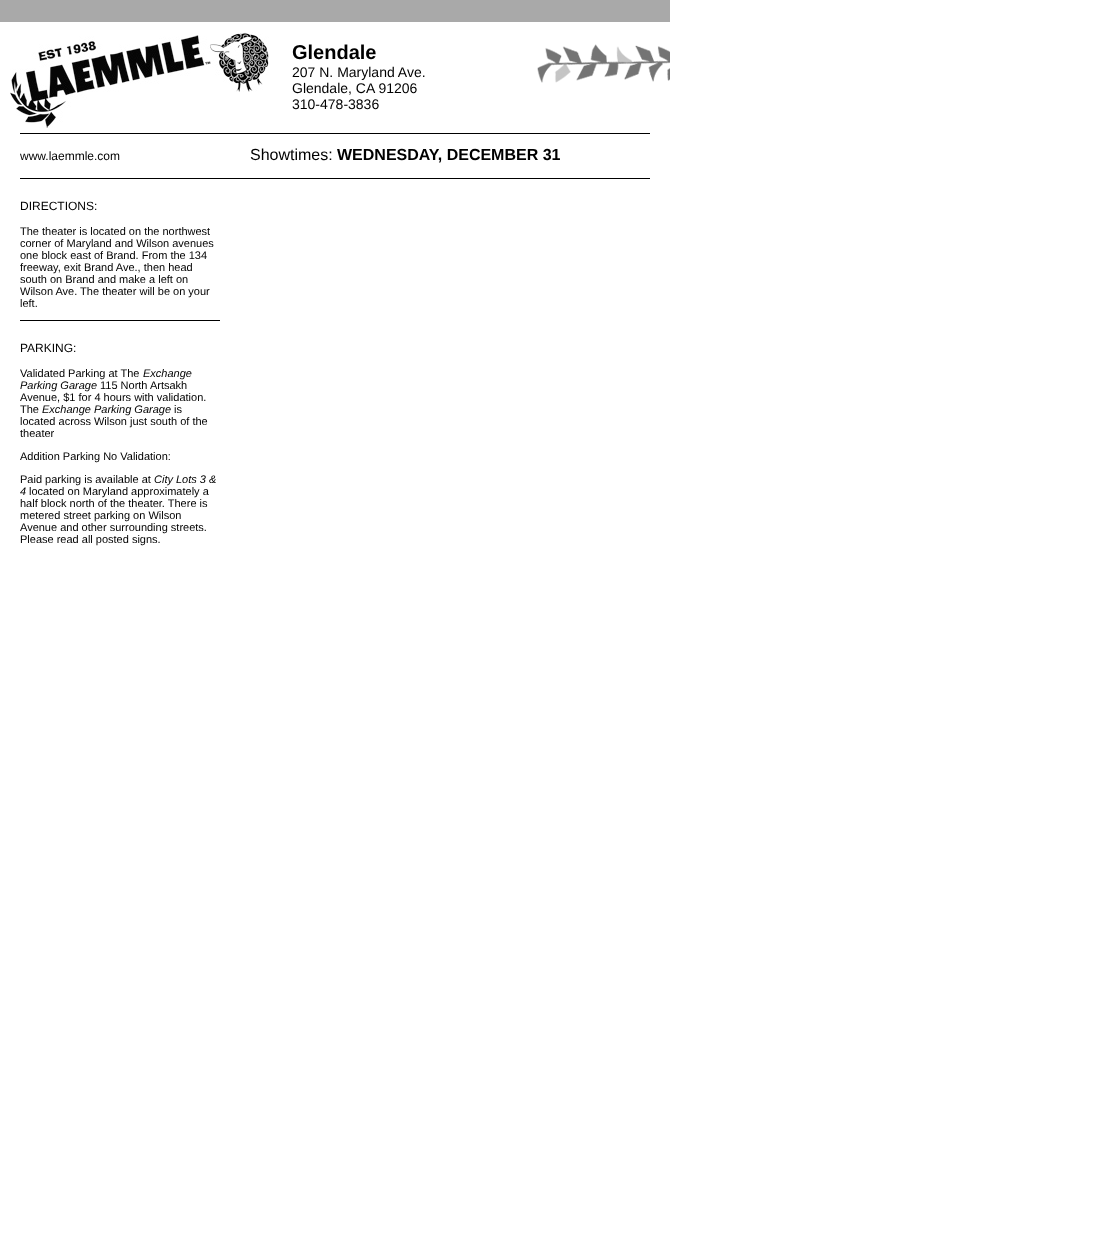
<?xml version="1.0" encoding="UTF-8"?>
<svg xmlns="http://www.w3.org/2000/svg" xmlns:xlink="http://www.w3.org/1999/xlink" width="1111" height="1239">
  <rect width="100%" height="100%" fill="#ffffff" />
  <rect width="670" height="22" fill="#a9a9a9" />
  <image x="10" y="32" width="259" height="96" xlink:href="image1.png" />
  <image x="537" y="44" width="133" height="39" xlink:href="image2.png" />
  <rect x="20" y="133" width="630" height="1" fill="#000000" />
  <rect x="20" y="178" width="630" height="1" fill="#000000" />
  <rect x="20" y="320" width="200" height="1" fill="#000000" />
  <text x="292" y="59" style="font-family: Liberation Sans; font-size: 20px; font-weight: bold; fill: #000000">Glendale</text>
  <text x="292" y="77" style="font-family: Liberation Sans; font-size: 14px; fill: #000000">207 N. Maryland Ave.</text>
  <text x="292" y="93" style="font-family: Liberation Sans; font-size: 14px; fill: #000000">Glendale, CA 91206</text>
  <text x="292" y="109" style="font-family: Liberation Sans; font-size: 14px; fill: #000000">310-478-3836</text>
  <text x="20" y="160" style="font-family: Liberation Sans; font-size: 12px; fill: #000000">www.laemmle.com</text>
  <text x="250" y="160" style="font-family: Liberation Sans; font-size: 16px; fill: #000000">Showtimes:</text>
  <text x="337" y="160" style="font-family: Liberation Sans; font-size: 16px; font-weight: bold; fill: #000000">WEDNESDAY, DECEMBER 31</text>
  <text x="20" y="210" style="font-family: Liberation Sans; font-size: 12px; fill: #000000">DIRECTIONS:</text>
  <text x="20" y="235" style="font-family: Liberation Sans; font-size: 11px; fill: #000000">The theater is located on the northwest</text>
  <text x="20" y="247" style="font-family: Liberation Sans; font-size: 11px; fill: #000000">corner of Maryland and Wilson avenues</text>
  <text x="20" y="259" style="font-family: Liberation Sans; font-size: 11px; fill: #000000">one block east of Brand. From the 134</text>
  <text x="20" y="271" style="font-family: Liberation Sans; font-size: 11px; fill: #000000">freeway, exit Brand Ave., then head</text>
  <text x="20" y="283" style="font-family: Liberation Sans; font-size: 11px; fill: #000000">south on Brand and make a left on</text>
  <text x="20" y="295" style="font-family: Liberation Sans; font-size: 11px; fill: #000000">Wilson Ave. The theater will be on your</text>
  <text x="20" y="307" style="font-family: Liberation Sans; font-size: 11px; fill: #000000">left.</text>
  <text x="20" y="352" style="font-family: Liberation Sans; font-size: 12px; fill: #000000">PARKING:</text>
  <text x="20" y="377" style="font-family: Liberation Sans; font-size: 11px; fill: #000000">Validated Parking at The</text>
  <text x="143" y="377" style="font-family: Liberation Sans; font-size: 11px; font-style: italic; fill: #000000">Exchange</text>
  <text x="20" y="389" style="font-family: Liberation Sans; font-size: 11px; font-style: italic; fill: #000000">Parking Garage</text>
  <text x="100" y="389" style="font-family: Liberation Sans; font-size: 11px; fill: #000000">115 North Artsakh</text>
  <text x="20" y="401" style="font-family: Liberation Sans; font-size: 11px; fill: #000000">Avenue, $1 for 4 hours with validation.</text>
  <text x="20" y="413" style="font-family: Liberation Sans; font-size: 11px; fill: #000000">The</text>
  <text x="42" y="413" style="font-family: Liberation Sans; font-size: 11px; font-style: italic; fill: #000000">Exchange Parking Garage</text>
  <text x="174" y="413" style="font-family: Liberation Sans; font-size: 11px; fill: #000000">is</text>
  <text x="20" y="425" style="font-family: Liberation Sans; font-size: 11px; fill: #000000">located across Wilson just south of the</text>
  <text x="20" y="437" style="font-family: Liberation Sans; font-size: 11px; fill: #000000">theater</text>
  <text x="20" y="460" style="font-family: Liberation Sans; font-size: 11px; fill: #000000">Addition Parking No Validation:</text>
  <text x="20" y="483" style="font-family: Liberation Sans; font-size: 11px; fill: #000000">Paid parking is available at</text>
  <text x="154" y="483" style="font-family: Liberation Sans; font-size: 11px; font-style: italic; fill: #000000">City Lots 3 &amp;</text>
  <text x="20" y="495" style="font-family: Liberation Sans; font-size: 11px; font-style: italic; fill: #000000">4</text>
  <text x="29" y="495" style="font-family: Liberation Sans; font-size: 11px; fill: #000000">located on Maryland approximately a</text>
  <text x="20" y="507" style="font-family: Liberation Sans; font-size: 11px; fill: #000000">half block north of the theater. There is</text>
  <text x="20" y="519" style="font-family: Liberation Sans; font-size: 11px; fill: #000000">metered street parking on Wilson</text>
  <text x="20" y="531" style="font-family: Liberation Sans; font-size: 11px; fill: #000000">Avenue and other surrounding streets.</text>
  <text x="20" y="543" style="font-family: Liberation Sans; font-size: 11px; fill: #000000">Please read all posted signs.</text>
</svg>
